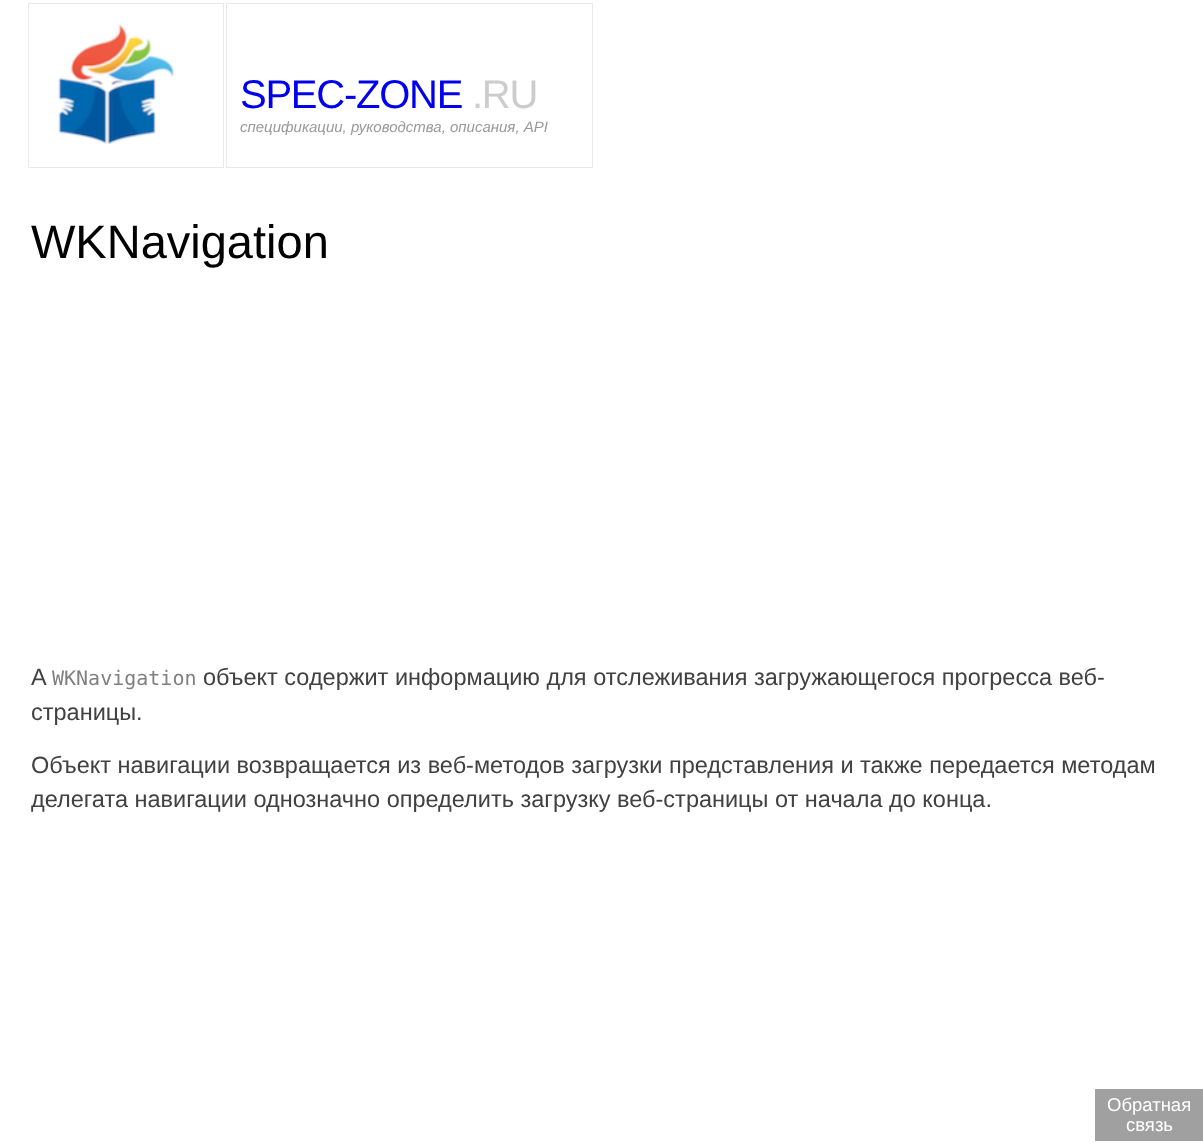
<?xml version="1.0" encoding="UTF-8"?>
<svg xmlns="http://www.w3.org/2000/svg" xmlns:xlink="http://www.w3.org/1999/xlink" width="1203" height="1147">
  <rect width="100%" height="100%" fill="#ffffff" />
  <rect x="28.5" y="3.5" width="195" height="164" fill="none" stroke="#e9e9e9" />
  <image x="58" y="24" width="116" height="121" xlink:href="image1.png" />
  <rect x="226.5" y="3.5" width="366" height="164" fill="none" stroke="#e9e9e9" />
  <rect x="1095" y="1089" width="108" height="52" fill="#a0a0a0" />
  <text x="240" y="108" style="font-family: Liberation Sans; font-size: 40px; letter-spacing: -1.25px; fill: #0000ee">SPEC-ZONE</text>
  <text x="472" y="108" style="font-family: Liberation Sans; font-size: 40px; letter-spacing: -1.25px; fill: #cccccc">.RU</text>
  <text x="240" y="132" style="font-family: Liberation Sans; font-size: 15px; font-style: italic; fill: #999999">спецификации, руководства, описания, API</text>
  <text x="31" y="258" style="font-family: Liberation Sans; font-size: 47px; fill: #000000">WKNavigation</text>
  <text x="31" y="685" style="font-family: Liberation Sans; font-size: 23.5px; fill: #414141">A</text>
  <text x="52" y="685" style="font-family: DejaVu Sans Mono; font-size: 20px; fill: #808080">WKNavigation</text>
  <text x="203" y="685" style="font-family: Liberation Sans; font-size: 23.5px; fill: #414141">объект содержит информацию для отслеживания загружающегося прогресса веб-</text>
  <text x="31" y="720" style="font-family: Liberation Sans; font-size: 23.5px; fill: #414141">страницы.</text>
  <text x="31" y="773" style="font-family: Liberation Sans; font-size: 23.5px; fill: #414141">Объект навигации возвращается из веб-методов загрузки представления и также передается методам</text>
  <text x="31" y="807" style="font-family: Liberation Sans; font-size: 23.5px; fill: #414141">делегата навигации однозначно определить загрузку веб-страницы от начала до конца.</text>
  <text x="1107" y="1111" style="font-family: Liberation Sans; font-size: 18.5px; fill: #ffffff">Обратная</text>
  <text x="1126" y="1131" style="font-family: Liberation Sans; font-size: 18.5px; fill: #ffffff">связь</text>
</svg>
